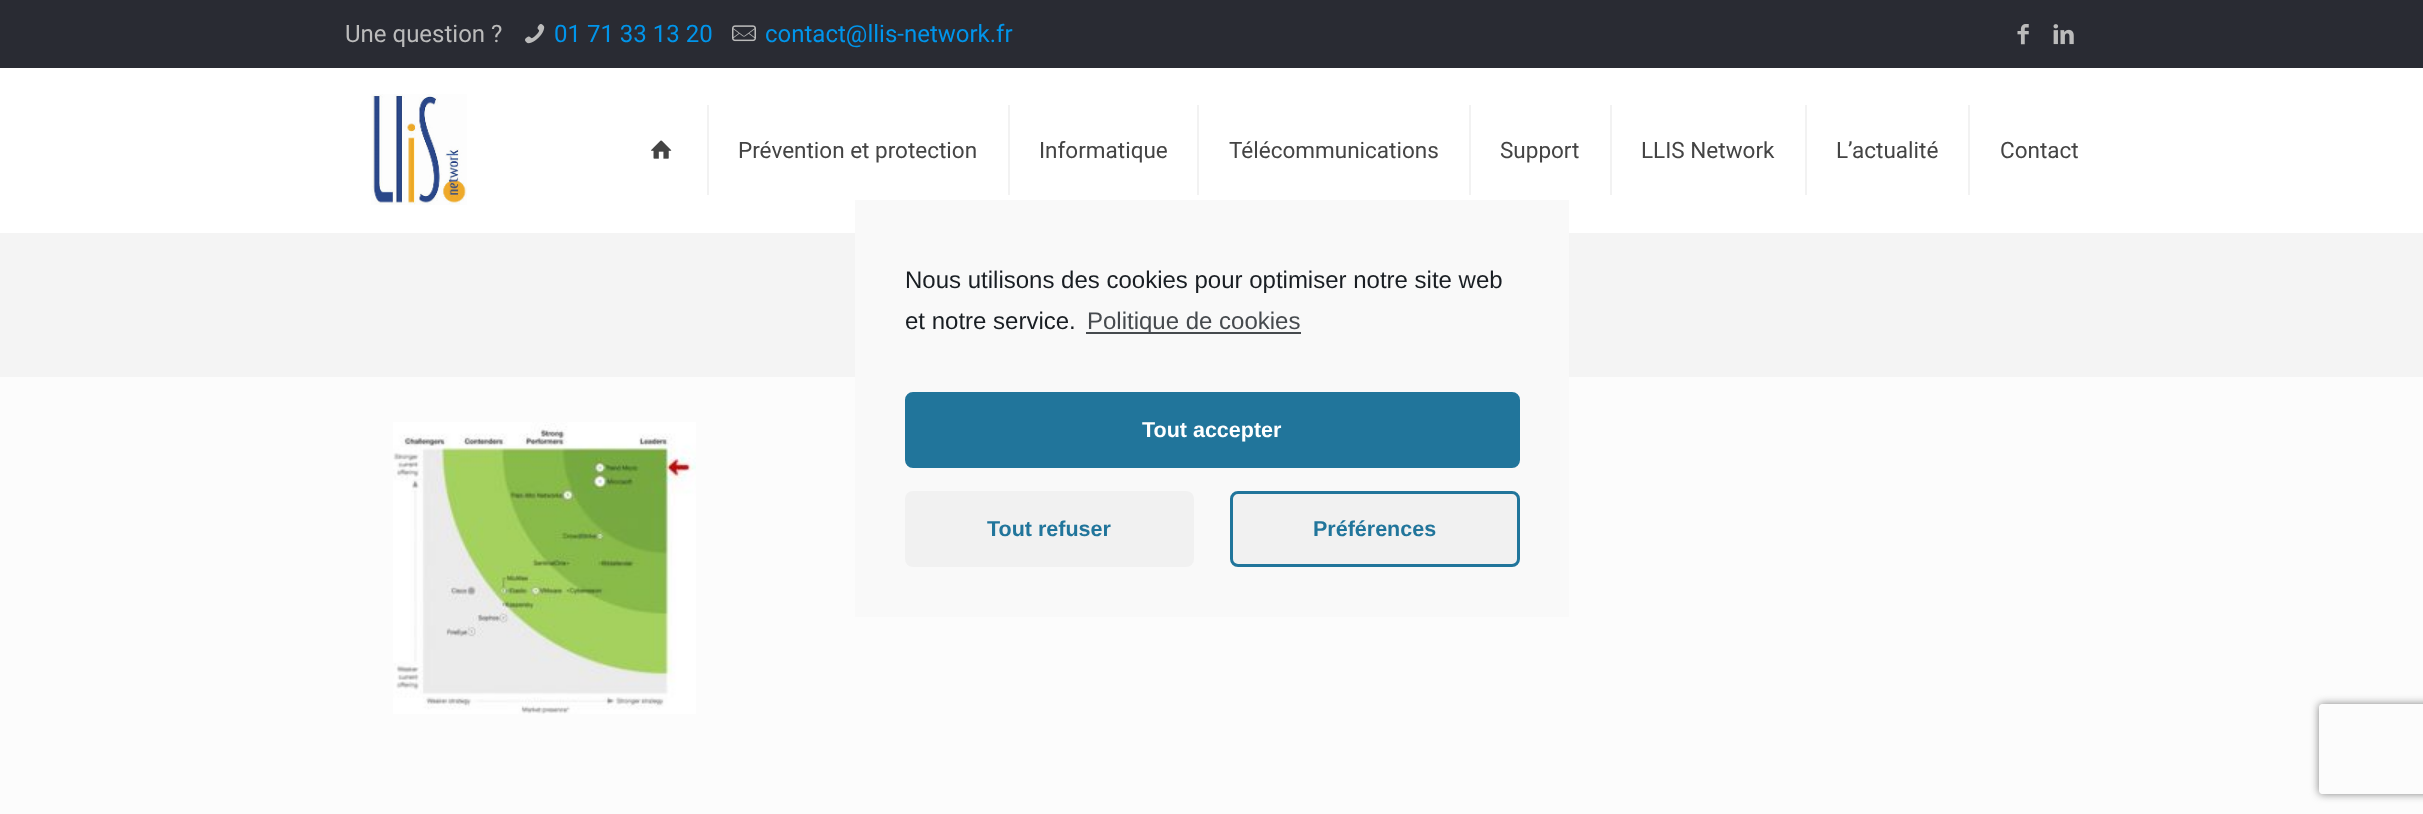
<?xml version="1.0" encoding="UTF-8"?>
<svg xmlns="http://www.w3.org/2000/svg" xmlns:xlink="http://www.w3.org/1999/xlink" width="2423" height="814">
  <defs>
    <clipPath id="clip1"><path d="M 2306 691 h 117 v 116 h -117 z m 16 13 h 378 c 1.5 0 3 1.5 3 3 v 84 c 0 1.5 -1.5 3 -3 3 h -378 c -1.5 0 -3 -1.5 -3 -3 v -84 c 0 -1.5 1.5 -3 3 -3 z" clip-rule="evenodd" /></clipPath>
  </defs>
  <rect width="100%" height="100%" fill="#fcfcfc" />
  <rect y="233" width="2423" height="144" fill="#f4f4f4" />
  <rect width="2423" height="68" fill="#292b33" />
  <image x="525" y="24" width="20" height="20" xlink:href="image1.png" />
  <image x="732" y="25" width="24" height="17" xlink:href="image2.png" />
  <image x="2017" y="24" width="12" height="21" xlink:href="image3.png" />
  <image x="2053" y="24" width="21" height="21" xlink:href="image4.png" />
  <rect y="68" width="2423" height="165" fill="#ffffff" />
  <image x="371" y="94" width="96" height="111" xlink:href="image5.png" />
  <rect x="707" y="105" width="2" height="90" fill="#f2f2f2" />
  <image x="651" y="140" width="21" height="19" xlink:href="image6.png" />
  <rect x="1008" y="105" width="2" height="90" fill="#f2f2f2" />
  <rect x="1197" y="105" width="2" height="90" fill="#f2f2f2" />
  <rect x="1469" y="105" width="2" height="90" fill="#f2f2f2" />
  <rect x="1610" y="105" width="2" height="90" fill="#f2f2f2" />
  <rect x="1805" y="105" width="2" height="90" fill="#f2f2f2" />
  <rect x="1968" y="105" width="2" height="90" fill="#f2f2f2" />
  <image x="393" y="422" width="303" height="292" xlink:href="image7.png" />
  <rect x="855" y="200" width="714" height="417" fill="#f9f9f9" />
  <rect x="1086" y="332" width="215" height="2" fill="#464a4e" />
  <rect x="906.5" y="393.5" width="612" height="73" rx="6.5" fill="#21759b" stroke="#21759b" stroke-width="3" />
  <rect x="905" y="491" width="289" height="76" rx="8" fill="#f1f1f1" />
  <rect x="1231.5" y="492.5" width="287" height="73" rx="6.5" fill="#f1f1f1" stroke="#21759b" stroke-width="3" />
  <g clip-path="url(#clip1)">
    <rect x="2319" y="704" width="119" height="90" rx="3" fill="#808080" filter="blur(4px)" />
  </g>
  <text x="345" y="42" style="font-family: Roboto; font-size: 24px; fill: #bbbbbb">Une question ?</text>
  <text x="554" y="42" style="font-family: Roboto; font-size: 24px; fill: #0095eb">01 71 33 13 20</text>
  <text x="765" y="42" style="font-family: Roboto; font-size: 24px; fill: #0095eb">contact@llis-network.fr</text>
  <text x="738" y="158" style="font-family: Roboto; font-size: 22.5px; fill: #444444">Prévention et protection</text>
  <text x="1039" y="158" style="font-family: Roboto; font-size: 22.5px; fill: #444444">Informatique</text>
  <text x="1229" y="158" style="font-family: Roboto; font-size: 22.5px; fill: #444444">Télécommunications</text>
  <text x="1500" y="158" style="font-family: Roboto; font-size: 22.5px; fill: #444444">Support</text>
  <text x="1641" y="158" style="font-family: Roboto; font-size: 22.5px; fill: #444444">LLIS Network</text>
  <text x="1836" y="158" style="font-family: Roboto; font-size: 22.5px; fill: #444444">L’actualité</text>
  <text x="2000" y="158" style="font-family: Roboto; font-size: 22.5px; fill: #444444">Contact</text>
  <text x="905" y="288" style="font-family: Liberation Sans; font-size: 24px; fill: #191e23">Nous utilisons des cookies pour optimiser notre site web</text>
  <text x="905" y="329" style="font-family: Liberation Sans; font-size: 24px; fill: #191e23">et notre service.</text>
  <text x="1087" y="329" style="font-family: Liberation Sans; font-size: 24px; fill: #464a4e">Politique de cookies</text>
  <text x="1142" y="437" style="font-family: Liberation Sans; font-size: 21.5px; font-weight: bold; fill: #ffffff">Tout accepter</text>
  <text x="987" y="536" style="font-family: Liberation Sans; font-size: 21.5px; font-weight: bold; fill: #21759b">Tout refuser</text>
  <text x="1313" y="536" style="font-family: Liberation Sans; font-size: 21.5px; font-weight: bold; fill: #21759b">Préférences</text>
</svg>
